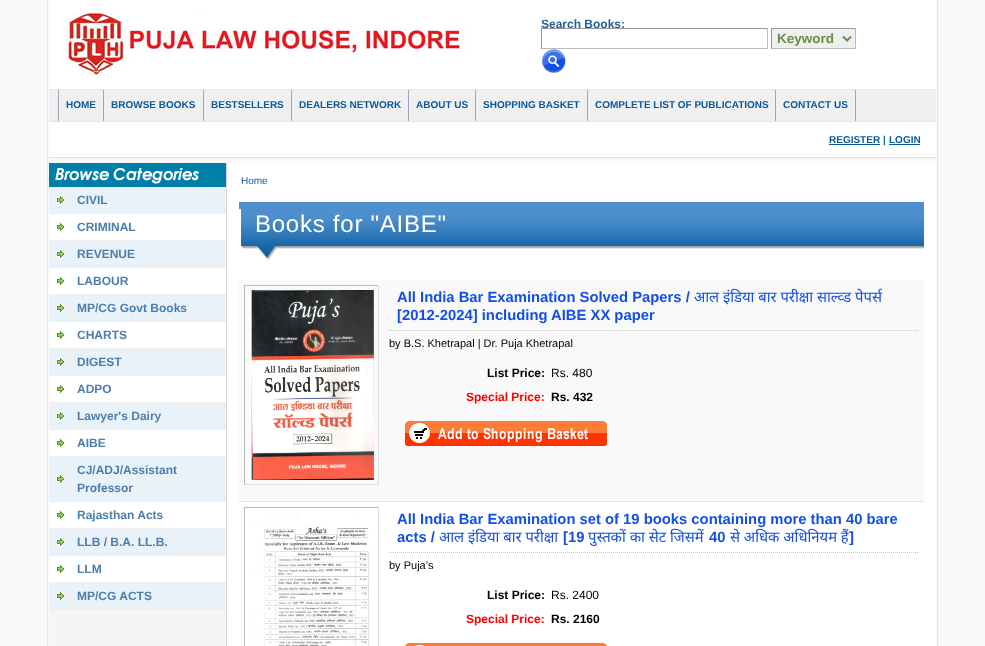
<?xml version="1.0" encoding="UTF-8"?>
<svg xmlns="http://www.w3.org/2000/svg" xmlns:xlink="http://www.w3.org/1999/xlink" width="985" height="646">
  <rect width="100%" height="100%" fill="#f9f9f9" />
  <rect x="937" width="1" height="646" fill="#e3e3e3" />
  <rect x="47" width="1" height="646" fill="#e3e3e3" />
  <rect x="49" width="887" height="89" fill="#ffffff" />
  <image x="66" y="12" width="400" height="64" xlink:href="image1.png" />
  <rect x="772" y="29" width="83" height="19" fill="#efefef" />
  <rect x="771" y="28" width="85" height="1" fill="#999999" />
  <rect x="855" y="28" width="1" height="21" fill="#bbbbbb" />
  <rect x="771" y="48" width="85" height="1" fill="#bbbbbb" />
  <rect x="771" y="28" width="1" height="21" fill="#999999" />
  <path d="M 843 36.5 l 4 4 l 4 -4" fill="none" stroke="#6b8c49" stroke-width="2" />
  <image x="542" y="49" width="24" height="24" xlink:href="image2.png" />
  <rect x="49" y="90" width="887" height="31" fill="#f0f0f0" />
  <rect x="49" y="89" width="887" height="1" fill="#e6e6e6" />
  <rect x="49" y="121" width="887" height="1" fill="#e6e6e6" />
  <rect x="58" y="90" width="1" height="31" fill="#99a7bb" />
  <rect x="103" y="90" width="1" height="31" fill="#99a7bb" />
  <rect x="203" y="90" width="1" height="31" fill="#99a7bb" />
  <rect x="291" y="90" width="1" height="31" fill="#99a7bb" />
  <rect x="408" y="90" width="1" height="31" fill="#99a7bb" />
  <rect x="475" y="90" width="1" height="31" fill="#99a7bb" />
  <rect x="587" y="90" width="1" height="31" fill="#99a7bb" />
  <rect x="775" y="90" width="1" height="31" fill="#99a7bb" />
  <rect x="855" y="90" width="1" height="31" fill="#99a7bb" />
  <rect x="49" y="122" width="887" height="35" fill="#ffffff" />
  <rect x="49" y="157" width="887" height="1" fill="#dddddd" />
  <rect x="829" y="144" width="51" height="1" fill="#0a589d" />
  <rect x="889" y="144" width="31" height="1" fill="#0a589d" />
  <rect x="227" y="163" width="709" height="483" fill="#ffffff" />
  <rect x="49" y="610" width="177" height="36" fill="#f5f5f5" />
  <rect x="226" y="163" width="1" height="483" fill="#d6d6d6" />
  <rect x="49" y="163" width="177" height="24" fill="#007fa8" />
  <image x="55" y="168" width="144" height="16" xlink:href="image3.png" />
  <rect x="49" y="187" width="177" height="26" fill="#eaf2f9" />
  <rect x="49" y="213" width="177" height="1" fill="#f0f0f0" />
  <image x="56" y="195" width="9" height="10" xlink:href="image4.png" />
  <rect x="49" y="214" width="177" height="26" fill="#ffffff" />
  <rect x="49" y="240" width="177" height="1" fill="#f0f0f0" />
  <image x="57" y="223" width="7" height="8" xlink:href="image5.png" />
  <rect x="49" y="241" width="177" height="26" fill="#eaf2f9" />
  <rect x="49" y="267" width="177" height="1" fill="#f0f0f0" />
  <image x="56" y="249" width="9" height="10" xlink:href="image4.png" />
  <rect x="49" y="268" width="177" height="26" fill="#ffffff" />
  <rect x="49" y="294" width="177" height="1" fill="#f0f0f0" />
  <image x="57" y="277" width="7" height="8" xlink:href="image5.png" />
  <rect x="49" y="295" width="177" height="26" fill="#eaf2f9" />
  <rect x="49" y="321" width="177" height="1" fill="#f0f0f0" />
  <image x="56" y="303" width="9" height="10" xlink:href="image4.png" />
  <rect x="49" y="322" width="177" height="26" fill="#ffffff" />
  <rect x="49" y="348" width="177" height="1" fill="#f0f0f0" />
  <image x="57" y="331" width="7" height="8" xlink:href="image5.png" />
  <rect x="49" y="349" width="177" height="26" fill="#eaf2f9" />
  <rect x="49" y="375" width="177" height="1" fill="#f0f0f0" />
  <image x="56" y="357" width="9" height="10" xlink:href="image4.png" />
  <rect x="49" y="376" width="177" height="26" fill="#ffffff" />
  <rect x="49" y="402" width="177" height="1" fill="#f0f0f0" />
  <image x="57" y="385" width="7" height="8" xlink:href="image5.png" />
  <rect x="49" y="403" width="177" height="26" fill="#eaf2f9" />
  <rect x="49" y="429" width="177" height="1" fill="#f0f0f0" />
  <image x="56" y="411" width="9" height="10" xlink:href="image4.png" />
  <rect x="49" y="430" width="177" height="26" fill="#ffffff" />
  <rect x="49" y="456" width="177" height="1" fill="#f0f0f0" />
  <image x="57" y="439" width="7" height="8" xlink:href="image5.png" />
  <rect x="49" y="457" width="177" height="44" fill="#eaf2f9" />
  <rect x="49" y="501" width="177" height="1" fill="#f0f0f0" />
  <image x="56" y="474" width="9" height="10" xlink:href="image4.png" />
  <rect x="49" y="502" width="177" height="26" fill="#ffffff" />
  <rect x="49" y="528" width="177" height="1" fill="#f0f0f0" />
  <image x="57" y="511" width="7" height="8" xlink:href="image5.png" />
  <rect x="49" y="529" width="177" height="26" fill="#eaf2f9" />
  <rect x="49" y="555" width="177" height="1" fill="#f0f0f0" />
  <image x="56" y="537" width="9" height="10" xlink:href="image4.png" />
  <rect x="49" y="556" width="177" height="26" fill="#ffffff" />
  <rect x="49" y="582" width="177" height="1" fill="#f0f0f0" />
  <image x="57" y="565" width="7" height="8" xlink:href="image5.png" />
  <rect x="49" y="583" width="177" height="26" fill="#eaf2f9" />
  <rect x="49" y="609" width="177" height="1" fill="#f0f0f0" />
  <image x="56" y="591" width="9" height="10" xlink:href="image4.png" />
  <rect x="239" y="202" width="685" height="7" fill="#4e90cd" />
  <image x="239" y="209" width="685" height="55" xlink:href="image6.png" />
  <rect x="239" y="280" width="685" height="221" fill="#f9f9f9" />
  <rect x="244" y="285" width="135" height="1" fill="#bbbbbb" />
  <rect x="378" y="285" width="1" height="200" fill="#dddddd" />
  <rect x="244" y="484" width="135" height="1" fill="#dddddd" />
  <rect x="244" y="285" width="1" height="200" fill="#bbbbbb" />
  <image x="249" y="290" width="125" height="190" xlink:href="image7.png" />
  <path d="M 389 330.5 h 530" fill="none" stroke="#b0cada" stroke-dasharray="1 1" />
  <image x="405" y="421" width="202" height="25" xlink:href="image8.png" />
  <rect x="239" y="501" width="685" height="1" fill="#e3e3e3" />
  <rect x="244" y="507" width="135" height="1" fill="#bbbbbb" />
  <rect x="244" y="507" width="1" height="139" fill="#bbbbbb" />
  <image x="251" y="513" width="118" height="133" xlink:href="image9.png" />
  <rect x="378" y="507" width="1" height="139" fill="#dddddd" />
  <path d="M 389 552.5 h 530" fill="none" stroke="#b0cada" stroke-dasharray="1 1" />
  <image x="405" y="643" width="202" height="3" xlink:href="image10.png" />
  <text x="541" y="28" style="font-family: Liberation Sans; font-size: 12px; font-weight: bold; fill: #256299">Search Books:</text>
  <rect x="541" y="28" width="227" height="1" fill="#999999" />
  <rect x="767" y="28" width="1" height="21" fill="#bbbbbb" />
  <rect x="541" y="48" width="227" height="1" fill="#bbbbbb" />
  <rect x="541" y="28" width="1" height="21" fill="#999999" />
  <text x="777" y="43" style="font-family: Liberation Sans; font-size: 13.5px; font-weight: bold; fill: #6b8c49">Keyword</text>
  <text x="66" y="108" style="font-family: Liberation Sans; font-size: 10px; font-weight: bold; fill: #0a589d">HOME</text>
  <text x="111" y="108" style="font-family: Liberation Sans; font-size: 10px; font-weight: bold; fill: #0a589d">BROWSE BOOKS</text>
  <text x="211" y="108" style="font-family: Liberation Sans; font-size: 10px; font-weight: bold; fill: #0a589d">BESTSELLERS</text>
  <text x="299" y="108" style="font-family: Liberation Sans; font-size: 10px; font-weight: bold; fill: #0a589d">DEALERS NETWORK</text>
  <text x="416" y="108" style="font-family: Liberation Sans; font-size: 10px; font-weight: bold; fill: #0a589d">ABOUT US</text>
  <text x="483" y="108" style="font-family: Liberation Sans; font-size: 10px; font-weight: bold; fill: #0a589d">SHOPPING BASKET</text>
  <text x="595" y="108" style="font-family: Liberation Sans; font-size: 10px; font-weight: bold; fill: #0a589d">COMPLETE LIST OF PUBLICATIONS</text>
  <text x="783" y="108" style="font-family: Liberation Sans; font-size: 10px; font-weight: bold; fill: #0a589d">CONTACT US</text>
  <text x="829" y="143" style="font-family: Liberation Sans; font-size: 10px; font-weight: bold; fill: #0a589d">REGISTER</text>
  <text x="883" y="143" style="font-family: Liberation Sans; font-size: 10px; font-weight: bold; fill: #006699">|</text>
  <text x="889" y="143" style="font-family: Liberation Sans; font-size: 10px; font-weight: bold; fill: #0a589d">LOGIN</text>
  <text x="77" y="204" style="font-family: Liberation Sans; font-size: 12px; font-weight: bold; fill: #4c7eac">CIVIL</text>
  <text x="77" y="231" style="font-family: Liberation Sans; font-size: 12px; font-weight: bold; fill: #4c7eac">CRIMINAL</text>
  <text x="77" y="258" style="font-family: Liberation Sans; font-size: 12px; font-weight: bold; fill: #4c7eac">REVENUE</text>
  <text x="77" y="285" style="font-family: Liberation Sans; font-size: 12px; font-weight: bold; fill: #4c7eac">LABOUR</text>
  <text x="77" y="312" style="font-family: Liberation Sans; font-size: 12px; font-weight: bold; fill: #4c7eac">MP/CG Govt Books</text>
  <text x="77" y="339" style="font-family: Liberation Sans; font-size: 12px; font-weight: bold; fill: #4c7eac">CHARTS</text>
  <text x="77" y="366" style="font-family: Liberation Sans; font-size: 12px; font-weight: bold; fill: #4c7eac">DIGEST</text>
  <text x="77" y="393" style="font-family: Liberation Sans; font-size: 12px; font-weight: bold; fill: #4c7eac">ADPO</text>
  <text x="77" y="420" style="font-family: Liberation Sans; font-size: 12px; font-weight: bold; fill: #4c7eac">Lawyer's Dairy</text>
  <text x="77" y="447" style="font-family: Liberation Sans; font-size: 12px; font-weight: bold; fill: #4c7eac">AIBE</text>
  <text x="77" y="474" style="font-family: Liberation Sans; font-size: 12px; font-weight: bold; fill: #4c7eac">CJ/ADJ/Assistant</text>
  <text x="77" y="492" style="font-family: Liberation Sans; font-size: 12px; font-weight: bold; fill: #4c7eac">Professor</text>
  <text x="77" y="519" style="font-family: Liberation Sans; font-size: 12px; font-weight: bold; fill: #4c7eac">Rajasthan Acts</text>
  <text x="77" y="546" style="font-family: Liberation Sans; font-size: 12px; font-weight: bold; fill: #4c7eac">LLB / B.A. LL.B.</text>
  <text x="77" y="573" style="font-family: Liberation Sans; font-size: 12px; font-weight: bold; fill: #4c7eac">LLM</text>
  <text x="77" y="600" style="font-family: Liberation Sans; font-size: 12px; font-weight: bold; fill: #4c7eac">MP/CG ACTS</text>
  <text x="241" y="184" style="font-family: Liberation Sans; font-size: 10px; fill: #0a589d">Home</text>
  <text x="255" y="232" style="font-family: Liberation Sans; font-size: 24px; letter-spacing: 0.75px; fill: #ffffff">Books for "AIBE"</text>
  <text x="397" y="302" style="font-family: Liberation Sans; font-size: 14.8px; font-weight: bold; fill: #134fe7">All India Bar Examination Solved Papers /</text>
  <text x="694" y="302" style="font-family: Noto Sans; font-size: 14.8px; fill: #134fe7">आल इंडिया बार परीक्षा साल्व्ड पेपर्स</text>
  <text x="397" y="320" style="font-family: Liberation Sans; font-size: 14.8px; font-weight: bold; fill: #134fe7">[2012-2024] including AIBE XX paper</text>
  <text x="389" y="347" style="font-family: Liberation Sans; font-size: 11px; fill: #000000">by B.S. Khetrapal | Dr. Puja Khetrapal</text>
  <text x="487" y="377" style="font-family: Liberation Sans; font-size: 12px; font-weight: bold; fill: #000000">List Price:</text>
  <text x="551" y="377" style="font-family: Liberation Sans; font-size: 12px; fill: #000000">Rs. 480</text>
  <text x="466" y="401" style="font-family: Liberation Sans; font-size: 12px; font-weight: bold; fill: #ff0000">Special Price:</text>
  <text x="551" y="401" style="font-family: Liberation Sans; font-size: 12px; font-weight: bold; fill: #000000">Rs. 432</text>
  <text x="397" y="524" style="font-family: Liberation Sans; font-size: 14.8px; font-weight: bold; fill: #134fe7">All India Bar Examination set of 19 books containing more than 40 bare</text>
  <text x="397" y="542" style="font-family: Liberation Sans; font-size: 14.8px; font-weight: bold; fill: #134fe7">acts /</text>
  <text x="439" y="542" style="font-family: Noto Sans; font-size: 14.8px; fill: #134fe7">आल इंडिया बार परीक्षा</text>
  <text x="563" y="542" style="font-family: Liberation Sans; font-size: 14.8px; font-weight: bold; fill: #134fe7">[19</text>
  <text x="588" y="542" style="font-family: Noto Sans; font-size: 14.8px; fill: #134fe7">पुस्तकों का सेट जिसमें</text>
  <text x="709" y="542" style="font-family: Liberation Sans; font-size: 14.8px; font-weight: bold; fill: #134fe7">40</text>
  <text x="730" y="542" style="font-family: Noto Sans; font-size: 14.8px; fill: #134fe7">से अधिक अधिनियम हैं</text>
  <text x="849" y="542" style="font-family: Liberation Sans; font-size: 14.8px; font-weight: bold; fill: #134fe7">]</text>
  <text x="389" y="569" style="font-family: Liberation Sans; font-size: 11px; fill: #000000">by Puja’s</text>
  <text x="487" y="599" style="font-family: Liberation Sans; font-size: 12px; font-weight: bold; fill: #000000">List Price:</text>
  <text x="551" y="599" style="font-family: Liberation Sans; font-size: 12px; fill: #000000">Rs. 2400</text>
  <text x="466" y="623" style="font-family: Liberation Sans; font-size: 12px; font-weight: bold; fill: #ff0000">Special Price:</text>
  <text x="551" y="623" style="font-family: Liberation Sans; font-size: 12px; font-weight: bold; fill: #000000">Rs. 2160</text>
</svg>
